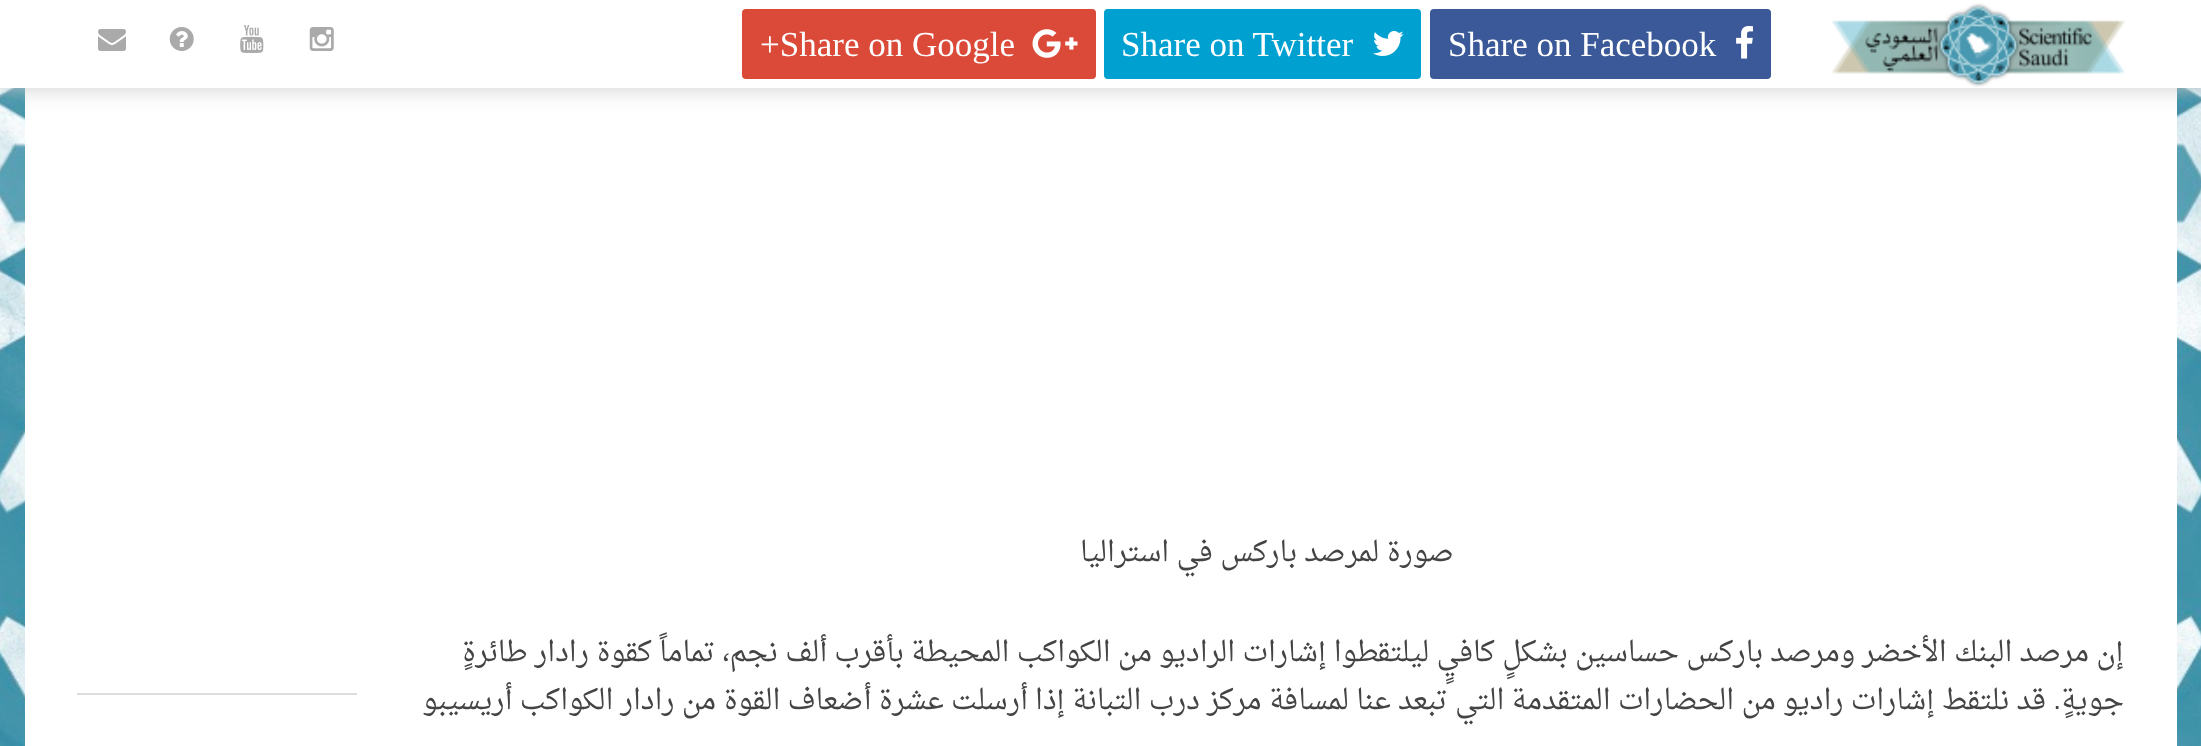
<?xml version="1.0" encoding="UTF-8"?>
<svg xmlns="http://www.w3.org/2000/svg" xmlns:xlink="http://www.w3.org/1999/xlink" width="2201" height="746">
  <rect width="100%" height="100%" fill="#ffffff" />
  <image x="0" y="88" width="2201" height="658" xlink:href="image1.png" />
  <rect x="25" y="88" width="2152" height="658" fill="#ffffff" />
  <rect width="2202" height="88" fill="#cccccc" filter="blur(10.5px)" />
  <rect width="2201" height="88" fill="#ffffff" />
  <image x="1832" y="3" width="293" height="84" xlink:href="image2.png" />
  <rect x="1430" y="9" width="341" height="70" rx="4" fill="#3b5998" />
  <image x="1736" y="26" width="17" height="33" xlink:href="image3.png" />
  <rect x="1104" y="9" width="317" height="70" rx="4" fill="#00a0d1" />
  <image x="1373" y="31" width="31" height="25" xlink:href="image4.png" />
  <rect x="742" y="9" width="354" height="70" rx="4" fill="#db4a39" />
  <image x="1032" y="29" width="46" height="29" xlink:href="image5.png" />
  <image x="309" y="27" width="25" height="24" xlink:href="image6.png" />
  <image x="240" y="25" width="24" height="28" xlink:href="image7.png" />
  <image x="169" y="27" width="25" height="24" xlink:href="image8.png" />
  <image x="98" y="29" width="28" height="22" xlink:href="image9.png" />
  <rect x="77" y="693" width="280" height="2" fill="#dddddd" />
  <text x="1448" y="56" style="font-family: Liberation Serif; font-size: 35px; fill: #ffffff">Share on Facebook</text>
  <text x="1121" y="56" style="font-family: Liberation Serif; font-size: 35px; fill: #ffffff">Share on Twitter</text>
  <text x="760" y="56" style="font-family: Liberation Serif; font-size: 35px; fill: #ffffff">+Share on Google</text>
  <text x="1454" y="561" style="font-family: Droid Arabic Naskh; font-size: 28px; direction: rtl; fill: #444444">صورة لمرصد باركس في استراليا</text>
  <text x="2124" y="661" style="font-family: Droid Arabic Naskh; font-size: 28px; direction: rtl; fill: #444444">إن مرصد البنك الأخضر ومرصد باركس حساسين بشكلٍ كافيٍ ليلتقطوا إشارات الراديو من الكواكب المحيطة بأقرب ألف نجم، تماماً كقوة رادار طائرةٍ</text>
  <text x="2124" y="709" style="font-family: Droid Arabic Naskh; font-size: 28px; direction: rtl; fill: #444444">جويةٍ</text>
  <text x="2061" y="709" style="font-family: Liberation Sans; font-size: 28px; direction: rtl; fill: #444444">.</text>
  <text x="2046" y="709" style="font-family: Droid Arabic Naskh; font-size: 28px; direction: rtl; fill: #444444">قد نلتقط إشارات راديو من الحضارات المتقدمة التي تبعد عنا لمسافة مركز درب التبانة إذا أرسلت عشرة أضعاف القوة من رادار الكواكب أريسيبو</text>
</svg>
